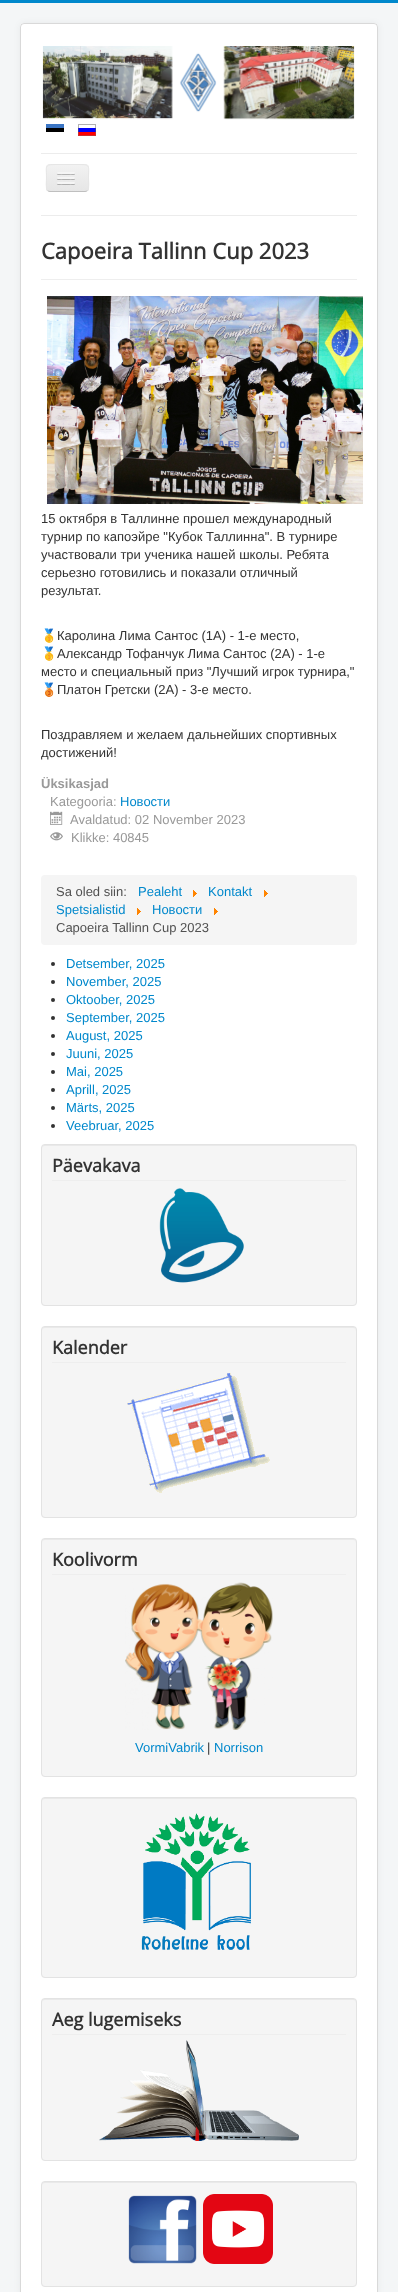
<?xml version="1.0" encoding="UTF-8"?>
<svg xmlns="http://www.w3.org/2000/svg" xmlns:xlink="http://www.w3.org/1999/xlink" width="398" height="2292">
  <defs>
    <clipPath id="clip1"><rect x="46" y="164" width="43" height="28" rx="4" /></clipPath>
    <linearGradient id="g1" gradientUnits="userSpaceOnUse" x1="68" y1="165" x2="68" y2="191"><stop offset="0" stop-color="#f2f2f2" /><stop offset="1" stop-color="#e6e6e6" /></linearGradient>
  </defs>
  <rect width="100%" height="100%" fill="#f4f6f7" />
  <rect width="398" height="3" fill="#0088cc" />
  <rect x="20" y="23" width="358" height="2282" rx="4" fill="#000000" fill-opacity="0.05" filter="blur(3px)" />
  <rect x="20" y="23" width="358" height="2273" rx="4" fill="#ffffff" />
  <rect x="20.5" y="23.5" width="357" height="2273" rx="3.5" fill="none" stroke="#000000" stroke-opacity="0.15" />
  <image x="42" y="46" width="313" height="74" xlink:href="image1.png" />
  <image x="46" y="124" width="18" height="8" xlink:href="image2.png" />
  <image x="78" y="124" width="18" height="12" xlink:href="image3.png" />
  <rect x="41" y="153" width="316" height="1" fill="#ececec" />
  <rect x="41" y="215" width="316" height="1" fill="#ececec" />
  <rect x="46" y="164" width="43" height="28" rx="4" fill="#ededed" />
  <g clip-path="url(#clip1)">
    <rect x="46" y="165" width="43" height="26" fill="url(#g1)" />
  </g>
  <path d="M 87.5 190.5 c -0.5 0.5 -1.5 1 -2.5 1 h -35 c -1 0 -2 -0.5 -2.5 -1" fill="none" stroke="#bfbfbf" />
  <path d="M 47.5 190.5 c -2 -2.5 -1 -10 -1 -12.5 c 0 -12 -2.5 -13.5 9.5 -13.5 h 23 c 12 0 9.5 1.5 9.5 13.5 c 0 2.5 1 10 -1 12.5" fill="none" stroke="#e6e6e6" />
  <path d="M 57 173.5 c -1 2 3.5 1.5 3.5 1.5 h 11 c 0 0 4.5 0.5 3.5 -1.5 c -1 1 -7.5 0.5 -9 0.5 c -1.5 0 -8 0.5 -9 -0.5 z" fill="#b3b3b3" />
  <rect x="57" y="172" width="18" height="2" rx="1" fill="#f5f5f5" />
  <path d="M 57 178.5 c -1 2 3.5 1.5 3.5 1.5 h 11 c 0 0 4.5 0.5 3.5 -1.5 c -1 1 -7.5 0.5 -9 0.5 c -1.5 0 -8 0.5 -9 -0.5 z" fill="#b0b0b0" />
  <rect x="57" y="177" width="18" height="2" rx="1" fill="#f5f5f5" />
  <path d="M 57 183.5 c -1 2 3.5 1.5 3.5 1.5 h 11 c 0 0 4.5 0.5 3.5 -1.5 c -1 1 -7.5 0.5 -9 0.5 c -1.5 0 -8 0.5 -9 -0.5 z" fill="#afafaf" />
  <rect x="57" y="182" width="18" height="2" rx="1" fill="#f5f5f5" />
  <rect x="41" y="279" width="316" height="1" fill="#eeeeee" />
  <image x="47" y="296" width="316" height="208" xlink:href="image4.png" />
  <image x="50" y="811" width="13" height="14" xlink:href="image5.png" />
  <image x="50" y="832" width="13" height="9" xlink:href="image6.png" />
  <rect x="41" y="875" width="316" height="70" rx="4" fill="#f5f5f5" />
  <image x="193" y="890" width="4" height="7" xlink:href="image7.png" />
  <image x="264" y="890" width="4" height="7" xlink:href="image7.png" />
  <image x="137" y="908" width="4" height="7" xlink:href="image7.png" />
  <image x="214" y="908" width="4" height="7" xlink:href="image7.png" />
  <circle cx="53" cy="964" r="2" fill="#333333" />
  <circle cx="53" cy="982" r="2" fill="#333333" />
  <circle cx="53" cy="1000" r="2" fill="#333333" />
  <circle cx="53" cy="1018" r="2" fill="#333333" />
  <circle cx="53" cy="1036" r="2" fill="#333333" />
  <circle cx="53" cy="1054" r="2" fill="#333333" />
  <circle cx="53" cy="1072" r="2" fill="#333333" />
  <circle cx="53" cy="1090" r="2" fill="#333333" />
  <circle cx="53" cy="1108" r="2" fill="#333333" />
  <circle cx="53" cy="1126" r="2" fill="#333333" />
  <rect x="41" y="1144" width="316" height="162" rx="4" fill="#f5f5f5" />
  <path d="M 45 1146 h 308 c 2 0 3 1 3 3 l -1 -3 l -1 -1 h -309 c -2 0 -3 2 -3 4 c 0 -2 1 -3 3 -3 z" fill="#e9e9e9" />
  <rect x="41.5" y="1144.5" width="315" height="161" rx="3.5" fill="none" stroke="#e3e3e3" />
  <rect x="52" y="1180" width="294" height="1" fill="#eeeeee" />
  <image x="159" y="1188" width="85" height="95" xlink:href="image8.png" />
  <rect x="41" y="1326" width="316" height="192" rx="4" fill="#f5f5f5" />
  <path d="M 45 1328 h 308 c 2 0 3 1 3 3 l -1 -3 l -1 -1 h -309 c -2 0 -3 2 -3 4 c 0 -2 1 -3 3 -3 z" fill="#e9e9e9" />
  <rect x="41.5" y="1326.5" width="315" height="191" rx="3.5" fill="none" stroke="#e3e3e3" />
  <rect x="52" y="1362" width="294" height="1" fill="#eeeeee" />
  <image x="127" y="1373" width="143" height="120" xlink:href="image9.png" />
  <rect x="41" y="1538" width="316" height="239" rx="4" fill="#f5f5f5" />
  <path d="M 45 1540 h 308 c 2 0 3 1 3 3 l -1 -3 l -1 -1 h -309 c -2 0 -3 2 -3 4 c 0 -2 1 -3 3 -3 z" fill="#e9e9e9" />
  <rect x="41.5" y="1538.5" width="315" height="238" rx="3.5" fill="none" stroke="#e3e3e3" />
  <rect x="52" y="1574" width="294" height="1" fill="#eeeeee" />
  <image x="125" y="1582" width="148" height="148" xlink:href="image10.png" />
  <rect x="41" y="1797" width="316" height="181" rx="4" fill="#f5f5f5" />
  <path d="M 45 1799 h 308 c 2 0 3 1 3 3 l -1 -3 l -1 -1 h -309 c -2 0 -3 2 -3 4 c 0 -2 1 -3 3 -3 z" fill="#e9e9e9" />
  <rect x="41.5" y="1797.5" width="315" height="180" rx="3.5" fill="none" stroke="#e3e3e3" />
  <image x="141" y="1813" width="110" height="137" xlink:href="image11.png" />
  <rect x="41" y="1998" width="316" height="163" rx="4" fill="#f5f5f5" />
  <path d="M 45 2000 h 308 c 2 0 3 1 3 3 l -1 -3 l -1 -1 h -309 c -2 0 -3 2 -3 4 c 0 -2 1 -3 3 -3 z" fill="#e9e9e9" />
  <rect x="41.5" y="1998.5" width="315" height="162" rx="3.5" fill="none" stroke="#e3e3e3" />
  <rect x="52" y="2034" width="294" height="1" fill="#eeeeee" />
  <image x="99" y="2040" width="200" height="101" xlink:href="image12.png" />
  <rect x="41" y="2181" width="316" height="106" rx="4" fill="#f5f5f5" />
  <path d="M 45 2183 h 308 c 2 0 3 1 3 3 l -1 -3 l -1 -1 h -309 c -2 0 -3 2 -3 4 c 0 -2 1 -3 3 -3 z" fill="#e9e9e9" />
  <rect x="41.5" y="2181.5" width="315" height="105" rx="3.5" fill="none" stroke="#e3e3e3" />
  <image x="128" y="2195" width="69" height="69" xlink:href="image13.png" />
  <image x="203" y="2194" width="70" height="70" xlink:href="image14.png" />
  <text x="41" y="259" style="font-family: Open Sans; font-size: 22px; font-weight: bold; fill: #333333">Capoeira Tallinn Cup 2023</text>
  <text x="41" y="523" style="font-family: Liberation Sans; font-size: 13px; fill: #333333">15 октября в Таллинне прошел международный</text>
  <text x="41" y="541" style="font-family: Liberation Sans; font-size: 13px; fill: #333333">турнир по капоэйре "Кубок Таллинна". В турнире</text>
  <text x="41" y="559" style="font-family: Liberation Sans; font-size: 13px; fill: #333333">участвовали три ученика нашей школы. Ребята</text>
  <text x="41" y="577" style="font-family: Liberation Sans; font-size: 13px; fill: #333333">серьезно готовились и показали отличный</text>
  <text x="41" y="595" style="font-family: Liberation Sans; font-size: 13px; fill: #333333">результат.</text>
  <text x="41" y="640" style="font-family: Noto Color Emoji; font-size: 13px; fill: #333333">🥇</text>
  <text x="57" y="640" style="font-family: Liberation Sans; font-size: 13px; fill: #333333">Каролина Лима Сантос (1A) - 1-е место,</text>
  <text x="41" y="658" style="font-family: Noto Color Emoji; font-size: 13px; fill: #333333">🥇</text>
  <text x="57" y="658" style="font-family: Liberation Sans; font-size: 13px; fill: #333333">Александр Тофанчук Лима Сантос (2A) - 1-е</text>
  <text x="41" y="676" style="font-family: Liberation Sans; font-size: 13px; fill: #333333">место и специальный приз "Лучший игрок турнира,"</text>
  <text x="41" y="694" style="font-family: Noto Color Emoji; font-size: 13px; fill: #333333">🥉</text>
  <text x="57" y="694" style="font-family: Liberation Sans; font-size: 13px; fill: #333333">Платон Гретски (2A) - 3-е место.</text>
  <text x="41" y="739" style="font-family: Liberation Sans; font-size: 13px; fill: #333333">Поздравляем и желаем дальнейших спортивных</text>
  <text x="41" y="757" style="font-family: Liberation Sans; font-size: 13px; fill: #333333">достижений!</text>
  <text x="41" y="788" style="font-family: Liberation Sans; font-size: 13px; font-weight: bold; fill: #999999">Üksikasjad</text>
  <text x="50" y="806" style="font-family: Liberation Sans; font-size: 13px; fill: #999999">Kategooria:</text>
  <text x="120" y="806" style="font-family: Liberation Sans; font-size: 13px; fill: #0088cc">Новости</text>
  <text x="70" y="824" style="font-family: Liberation Sans; font-size: 13px; fill: #999999">Avaldatud: 02 November 2023</text>
  <text x="71" y="842" style="font-family: Liberation Sans; font-size: 13px; fill: #999999">Klikke: 40845</text>
  <text x="56" y="896" style="font-family: Liberation Sans; font-size: 13px; fill: #515151">Sa oled siin:</text>
  <text x="138" y="896" style="font-family: Liberation Sans; font-size: 13px; fill: #0088cc">Pealeht</text>
  <text x="208" y="896" style="font-family: Liberation Sans; font-size: 13px; fill: #0088cc">Kontakt</text>
  <text x="56" y="914" style="font-family: Liberation Sans; font-size: 13px; fill: #0088cc">Spetsialistid</text>
  <text x="152" y="914" style="font-family: Liberation Sans; font-size: 13px; fill: #0088cc">Новости</text>
  <text x="56" y="932" style="font-family: Liberation Sans; font-size: 13px; fill: #515151">Capoeira Tallinn Cup 2023</text>
  <text x="66" y="968" style="font-family: Liberation Sans; font-size: 13px; fill: #0088cc">Detsember, 2025</text>
  <text x="66" y="986" style="font-family: Liberation Sans; font-size: 13px; fill: #0088cc">November, 2025</text>
  <text x="66" y="1004" style="font-family: Liberation Sans; font-size: 13px; fill: #0088cc">Oktoober, 2025</text>
  <text x="66" y="1022" style="font-family: Liberation Sans; font-size: 13px; fill: #0088cc">September, 2025</text>
  <text x="66" y="1040" style="font-family: Liberation Sans; font-size: 13px; fill: #0088cc">August, 2025</text>
  <text x="66" y="1058" style="font-family: Liberation Sans; font-size: 13px; fill: #0088cc">Juuni, 2025</text>
  <text x="66" y="1076" style="font-family: Liberation Sans; font-size: 13px; fill: #0088cc">Mai, 2025</text>
  <text x="66" y="1094" style="font-family: Liberation Sans; font-size: 13px; fill: #0088cc">Aprill, 2025</text>
  <text x="66" y="1112" style="font-family: Liberation Sans; font-size: 13px; fill: #0088cc">Märts, 2025</text>
  <text x="66" y="1130" style="font-family: Liberation Sans; font-size: 13px; fill: #0088cc">Veebruar, 2025</text>
  <text x="52" y="1172" style="font-family: Open Sans; font-size: 18px; font-weight: bold; fill: #333333">Päevakava</text>
  <text x="52" y="1354" style="font-family: Open Sans; font-size: 18px; font-weight: bold; fill: #333333">Kalender</text>
  <text x="52" y="1566" style="font-family: Open Sans; font-size: 18px; font-weight: bold; fill: #333333">Koolivorm</text>
  <text x="135" y="1752" style="font-family: Liberation Sans; font-size: 13px; fill: #0088cc">VormiVabrik</text>
  <text x="207" y="1752" style="font-family: Liberation Sans; font-size: 13px; fill: #333333">|</text>
  <text x="214" y="1752" style="font-family: Liberation Sans; font-size: 13px; fill: #0088cc">Norrison</text>
  <text x="52" y="2026" style="font-family: Open Sans; font-size: 18px; font-weight: bold; fill: #333333">Aeg lugemiseks</text>
</svg>
